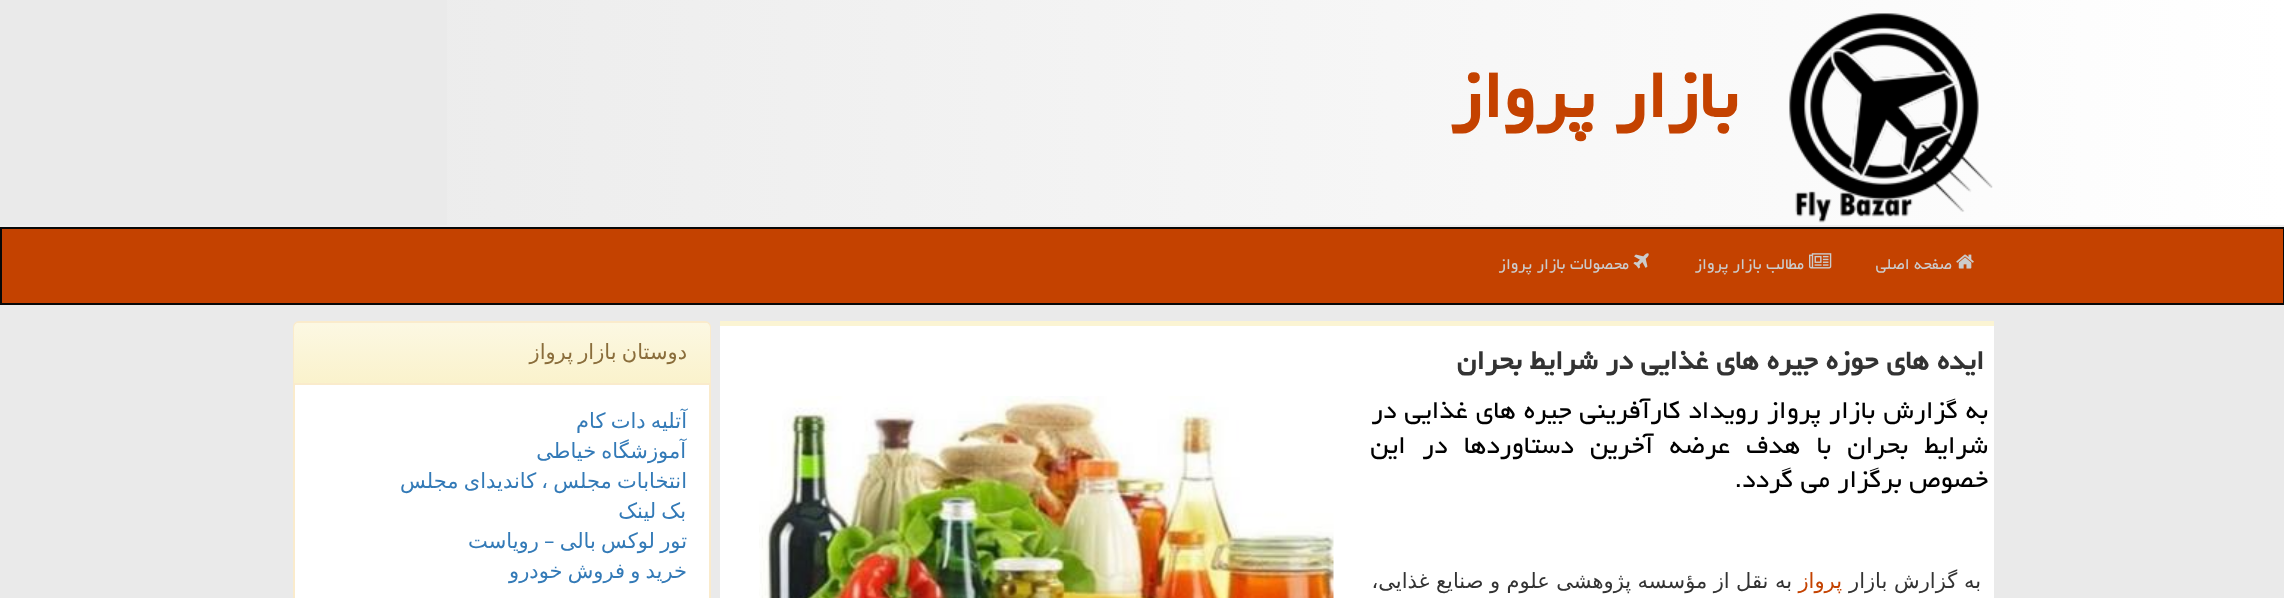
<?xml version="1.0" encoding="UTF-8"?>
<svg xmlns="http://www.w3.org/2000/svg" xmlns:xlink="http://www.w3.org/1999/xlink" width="2284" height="598">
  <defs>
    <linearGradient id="g1" gradientUnits="userSpaceOnUse" x1="0" y1="113" x2="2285" y2="112"><stop offset="0" stop-color="#e8e8e8" /><stop offset="1" stop-color="#ffffff" /></linearGradient>
    <linearGradient id="g2" gradientUnits="userSpaceOnUse" x1="502" y1="322" x2="502" y2="383"><stop offset="0" stop-color="#fcf8e3" /><stop offset="1" stop-color="#faf2cc" /></linearGradient>
  </defs>
  <rect width="100%" height="100%" fill="#eaeaea" />
  <rect x="447" width="1837" height="225" fill="url(#g1)" />
  <rect y="225" width="2284" height="2" fill="#eeeeee" />
  <image x="1789" y="13" width="204" height="210" xlink:href="image1.png" />
  <rect x="1" y="228" width="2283" height="76" fill="#c44200" stroke="#080808" stroke-width="2" />
  <image x="1956" y="254" width="18" height="15" xlink:href="image2.png" />
  <image x="1809" y="253" width="23" height="16" xlink:href="image3.png" />
  <image x="1633" y="253" width="16" height="16" xlink:href="image4.png" />
  <rect x="720" y="326" width="1274" height="272" fill="#ffffff" />
  <rect x="720" y="321" width="1274" height="5" fill="#fbf4d3" />
  <image x="759" y="396" width="575" height="202" xlink:href="image5.png" />
  <rect x="294" y="322" width="416" height="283" rx="5" fill="#ffffff" stroke="#faebcc" stroke-width="2" />
  <path d="M 299 323 h 406 c 3 0 5 2 5 5 v 55 h -416 v -55 c 0 -3 2 -5 5 -5 z" fill="url(#g2)" />
  <rect x="294" y="383" width="416" height="2" fill="#faebcc" />
  <text x="1737" y="117" style="font-family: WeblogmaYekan; font-size: 84px; font-weight: bold; direction: rtl; fill: #c44200">بازار پرواز</text>
  <text x="1952" y="269" style="font-family: WeblogmaYekan; font-size: 19.5px; direction: rtl; fill: #cccccc">صفحه اصلی</text>
  <text x="1804" y="269" style="font-family: WeblogmaYekan; font-size: 19.5px; direction: rtl; fill: #cccccc">مطالب بازار پرواز</text>
  <text x="1629" y="269" style="font-family: WeblogmaYekan; font-size: 19.5px; direction: rtl; fill: #cccccc">محصولات بازار پرواز</text>
  <text x="1984" y="369" style="font-family: WeblogmaYekan; font-size: 33.6px; font-weight: bold; direction: rtl; fill: #333333">ایده های حوزه جیره های غذایی در شرایط بحران</text>
  <text x="1988" y="418" word-spacing="0.5" style="font-family: WeblogmaYekan; font-size: 31.5px; direction: rtl; fill: #000000">به گزارش بازار پرواز رویداد كارآفرینی جیره های غذایی در</text>
  <text x="1988" y="453" word-spacing="8.75" style="font-family: WeblogmaYekan; font-size: 31.5px; direction: rtl; fill: #000000">شرایط بحران با هدف عرضه آخرین دستاوردها در این</text>
  <text x="1988" y="487" style="font-family: WeblogmaYekan; font-size: 31.5px; direction: rtl; fill: #000000">خصوص برگزار می گردد.</text>
  <text x="1981" y="588" style="font-family: DejaVu Sans; font-size: 21px; direction: rtl; fill: #333333">به گزارش بازار</text>
  <text x="1842" y="588" style="font-family: DejaVu Sans; font-size: 21px; direction: rtl; fill: #c44200">پرواز</text>
  <text x="1792" y="588" word-spacing="-0.25" style="font-family: DejaVu Sans; font-size: 21px; direction: rtl; fill: #333333">به نقل از مؤسسه پژوهشی علوم و صنایع غذایی،</text>
  <text x="687" y="359" word-spacing="-1.5" style="font-family: DejaVu Sans; font-size: 21px; direction: rtl; fill: #8a6d3b">دوستان بازار پرواز</text>
  <text x="687" y="428" word-spacing="-1.5" style="font-family: DejaVu Sans; font-size: 21px; direction: rtl; fill: #337ab7">آتلیه دات کام</text>
  <text x="686" y="458" word-spacing="-1.5" style="font-family: DejaVu Sans; font-size: 21px; direction: rtl; fill: #337ab7">آموزشگاه خیاطی</text>
  <text x="687" y="488" word-spacing="-1.5" style="font-family: DejaVu Sans; font-size: 21px; direction: rtl; fill: #337ab7">انتخابات مجلس ، کاندیدای مجلس</text>
  <text x="686" y="518" word-spacing="-1.5" style="font-family: DejaVu Sans; font-size: 21px; direction: rtl; fill: #337ab7">بک لینک</text>
  <text x="687" y="548" word-spacing="-1.5" style="font-family: DejaVu Sans; font-size: 21px; direction: rtl; fill: #337ab7">تور لوکس بالی – رویاست</text>
  <text x="687" y="578" word-spacing="-1.5" style="font-family: DejaVu Sans; font-size: 21px; direction: rtl; fill: #337ab7">خرید و فروش خودرو</text>
</svg>
